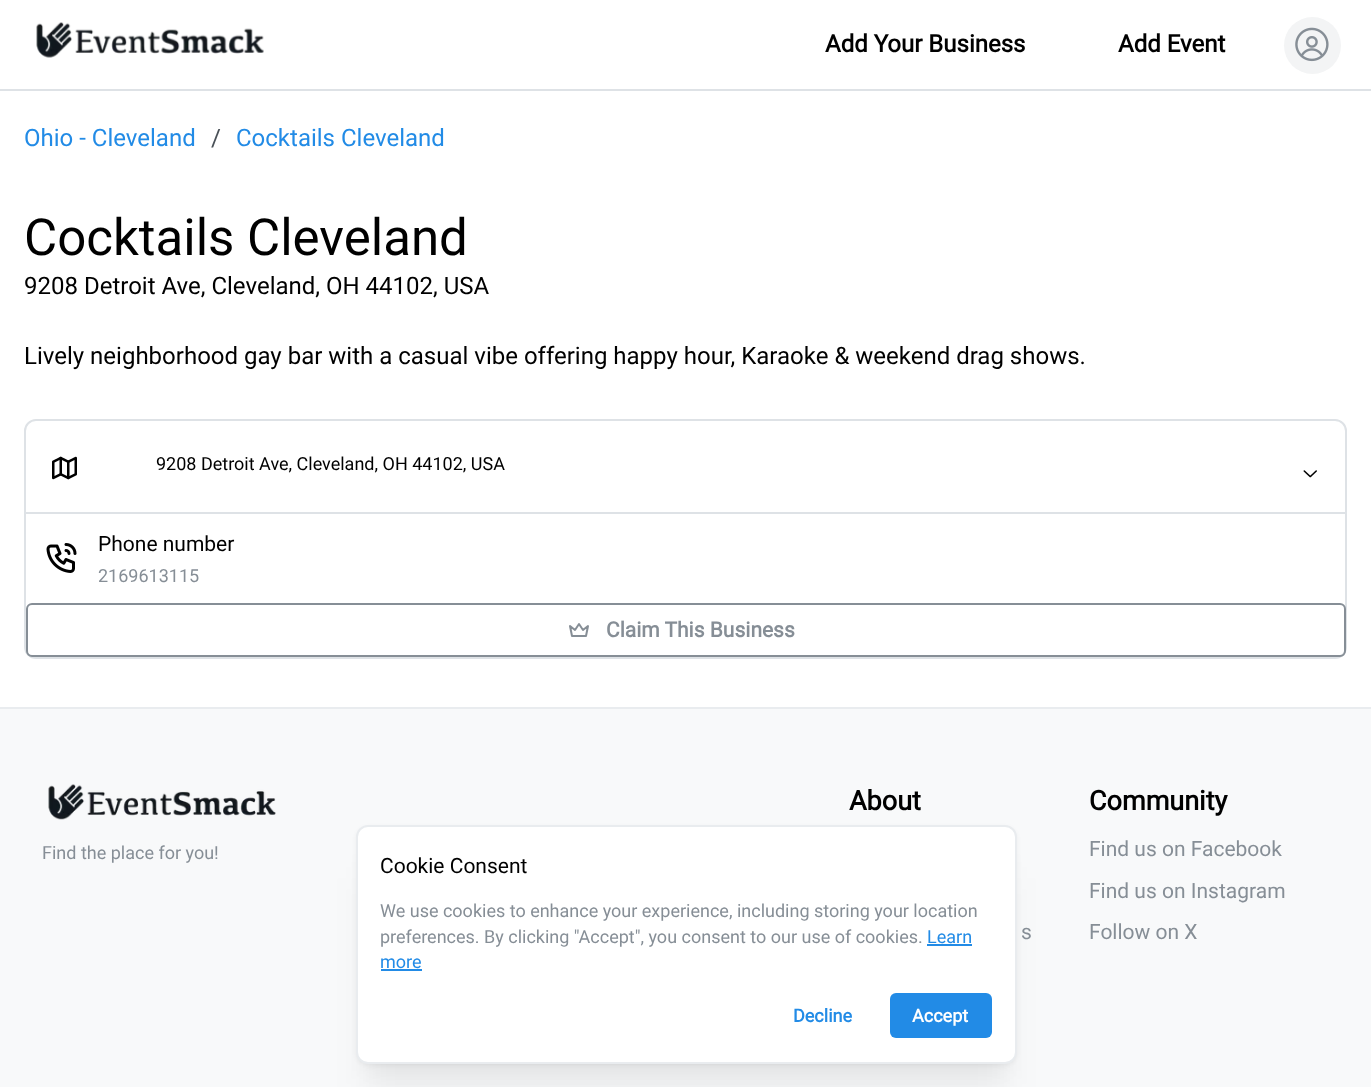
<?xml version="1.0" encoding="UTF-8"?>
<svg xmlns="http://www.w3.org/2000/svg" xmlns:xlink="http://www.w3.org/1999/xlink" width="1371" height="1087">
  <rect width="100%" height="100%" fill="#ffffff" />
  <rect y="89" width="1371" height="2" fill="#dee2e6" />
  <image x="36" y="22" width="228" height="36" xlink:href="image1.png" />
  <circle cx="1312.5" cy="45.5" r="28.5" fill="#f3f4f5" />
  <image x="1295" y="27" width="34" height="35" xlink:href="image2.png" />
  <rect x="25" y="420" width="1321" height="238" rx="11" fill="none" stroke="#dee2e6" stroke-width="2" />
  <rect x="26" y="512" width="1320" height="2" fill="#dee2e6" />
  <image x="52" y="456" width="25" height="24" xlink:href="image3.png" />
  <image x="1303" y="470" width="14" height="8" xlink:href="image4.png" />
  <image x="46" y="543" width="31" height="30" xlink:href="image5.png" />
  <rect x="27" y="604" width="1318" height="52" rx="5" fill="none" stroke="#868e96" stroke-width="2" />
  <path d="M 579 624 l 4 6 l 5 -4 l -2 10 h -14 l -2 -10 l 5 4 z" fill="none" stroke="#868e96" stroke-width="2" stroke-linecap="round" stroke-linejoin="round" />
  <rect y="709" width="1371" height="378" fill="#f8f9fa" />
  <rect y="707" width="1371" height="2" fill="#e9ecef" />
  <image x="48" y="784" width="228" height="36" xlink:href="image6.png" />
  <rect x="366" y="854" width="641" height="217" rx="1.5" fill="#000000" fill-opacity="0.04" filter="blur(9px)" />
  <rect x="366" y="878" width="641" height="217" rx="1.5" fill="#000000" fill-opacity="0.05" filter="blur(17px)" />
  <rect x="356" y="827" width="661" height="238" rx="12" fill="#000000" fill-opacity="0.05" filter="blur(2px)" />
  <rect x="357" y="826" width="659" height="237" rx="11" fill="#ffffff" stroke="#e9ecef" stroke-width="2" />
  <rect x="927" y="944" width="45" height="2" fill="#228be6" />
  <rect x="381" y="969" width="41" height="2" fill="#228be6" />
  <rect x="890" y="993" width="102" height="45" rx="6" fill="#228be6" />
  <text x="825" y="52" style="font-family: Roboto; font-size: 24px; font-weight: bold; fill: #000000">Add Your Business</text>
  <text x="1118" y="52" style="font-family: Roboto; font-size: 24px; font-weight: bold; fill: #000000">Add Event</text>
  <text x="24" y="146" style="font-family: Roboto; font-size: 24px; fill: #228be6">Ohio - Cleveland</text>
  <text x="211" y="146" style="font-family: Roboto; font-size: 24px; fill: #495057">/</text>
  <text x="236" y="146" style="font-family: Roboto; font-size: 24px; fill: #228be6">Cocktails Cleveland</text>
  <text x="24" y="255" style="font-family: Roboto; font-size: 51px; fill: #000000">Cocktails Cleveland</text>
  <text x="24" y="294" style="font-family: Roboto; font-size: 24px; fill: #000000">9208 Detroit Ave, Cleveland, OH 44102, USA</text>
  <text x="24" y="364" style="font-family: Roboto; font-size: 24px; fill: #000000">Lively neighborhood gay bar with a casual vibe offering happy hour, Karaoke &amp; weekend drag shows.</text>
  <text x="156" y="470" style="font-family: Roboto; font-size: 18px; fill: #000000">9208 Detroit Ave, Cleveland, OH 44102, USA</text>
  <text x="98" y="551" style="font-family: Roboto; font-size: 21px; fill: #000000">Phone number</text>
  <text x="98" y="582" style="font-family: Roboto; font-size: 18px; fill: #868e96">2169613115</text>
  <text x="606" y="637" style="font-family: Roboto; font-size: 21px; font-weight: bold; fill: #868e96">Claim This Business</text>
  <text x="42" y="859" style="font-family: Roboto; font-size: 18px; fill: #868e96">Find the place for you!</text>
  <text x="849" y="810" style="font-family: Roboto; font-size: 27px; font-weight: bold; fill: #000000">About</text>
  <text x="1021" y="939" style="font-family: Roboto; font-size: 21px; fill: #868e96">s</text>
  <text x="1089" y="810" style="font-family: Roboto; font-size: 27px; font-weight: bold; fill: #000000">Community</text>
  <text x="1089" y="856" style="font-family: Roboto; font-size: 21px; fill: #868e96">Find us on Facebook</text>
  <text x="1089" y="898" style="font-family: Roboto; font-size: 21px; fill: #868e96">Find us on Instagram</text>
  <text x="1089" y="939" style="font-family: Roboto; font-size: 21px; fill: #868e96">Follow on X</text>
  <text x="380" y="873" style="font-family: Roboto; font-size: 21px; fill: #000000">Cookie Consent</text>
  <text x="380" y="917" style="font-family: Roboto; font-size: 18px; fill: #868e96">We use cookies to enhance your experience, including storing your location</text>
  <text x="380" y="943" style="font-family: Roboto; font-size: 18px; fill: #868e96">preferences. By clicking "Accept", you consent to our use of cookies.</text>
  <text x="927" y="943" style="font-family: Roboto; font-size: 18px; fill: #228be6">Learn</text>
  <text x="380" y="968" style="font-family: Roboto; font-size: 18px; fill: #228be6">more</text>
  <text x="793" y="1022" style="font-family: Roboto; font-size: 18px; font-weight: bold; fill: #228be6">Decline</text>
  <text x="912" y="1022" style="font-family: Roboto; font-size: 18px; font-weight: bold; fill: #ffffff">Accept</text>
</svg>
